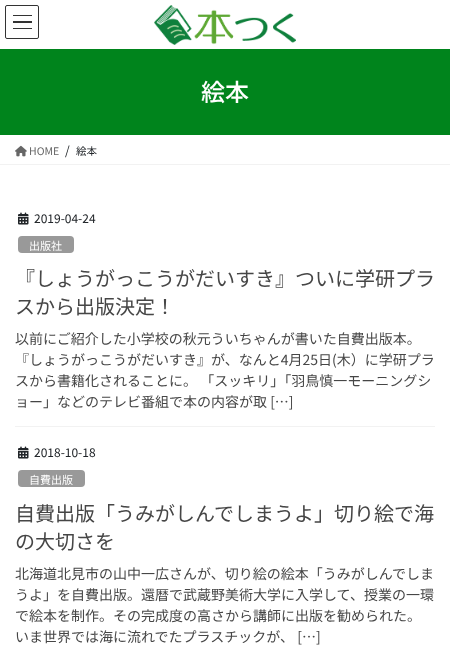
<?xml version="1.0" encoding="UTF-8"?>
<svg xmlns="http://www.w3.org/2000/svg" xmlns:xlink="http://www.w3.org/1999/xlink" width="450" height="661">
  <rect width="100%" height="100%" fill="#ffffff" />
  <rect x="13" y="15" width="19" height="1" fill="#333333" />
  <rect x="13" y="21" width="19" height="2" fill="#333333" />
  <rect x="13" y="28" width="19" height="1" fill="#333333" />
  <rect x="5.5" y="5.5" width="33" height="33" rx="1.5" fill="none" stroke="#333333" />
  <image x="154" y="5" width="142" height="40" xlink:href="image1.png" />
  <rect y="49" width="450" height="86" fill="#00841c" />
  <rect y="164" width="450" height="1" fill="#f2f2f2" />
  <image x="15" y="145" width="12" height="12" xlink:href="image2.png" />
  <rect x="15" y="426" width="420" height="1" fill="#f2f2f2" />
  <image x="18" y="212" width="11" height="13" xlink:href="image3.png" />
  <rect x="18" y="236" width="56" height="17" rx="4" fill="#999999" />
  <image x="18" y="446" width="11" height="13" xlink:href="image3.png" />
  <rect x="18" y="470" width="67" height="17" rx="4" fill="#999999" />
  <text x="201" y="101" style="font-family: Noto Sans JP; font-size: 24px; font-weight: 500; fill: #ffffff">絵本</text>
  <text x="29" y="155" style="font-family: Noto Sans JP; font-size: 10.5px; fill: #666666">HOME</text>
  <text x="65" y="155" style="font-family: Noto Sans JP; font-size: 12px; fill: #212529">/</text>
  <text x="76" y="155" style="font-family: Noto Sans JP; font-size: 10.5px; fill: #212529">絵本</text>
  <text x="34" y="223" style="font-family: Noto Sans JP; font-size: 12px; fill: #212529">2019-04-24</text>
  <text x="29" y="250" style="font-family: Noto Sans JP; font-size: 11px; fill: #ffffff">出版社</text>
  <text x="15" y="286" style="font-family: Noto Sans JP; font-size: 20px; fill: #464646">『しょうがっこうがだいすき』ついに学研プラ</text>
  <text x="15" y="314" style="font-family: Noto Sans JP; font-size: 20px; fill: #464646">スから出版決定！</text>
  <text x="15" y="344" style="font-family: Noto Sans JP; font-size: 14px; fill: #464646">以前にご紹介した小学校の秋元ういちゃんが書いた自費出版本。</text>
  <text x="15" y="365" style="font-family: Noto Sans JP; font-size: 14px; fill: #464646">『しょうがっこうがだいすき』が、なんと4月25日(木）に学研プラ</text>
  <text x="15" y="386" style="font-family: Noto Sans JP; font-size: 14px; fill: #464646">スから書籍化されることに。 「スッキリ」「羽鳥慎一モーニングシ</text>
  <text x="15" y="407" style="font-family: Noto Sans JP; font-size: 14px; fill: #464646">ョー」などのテレビ番組で本の内容が取 […]</text>
  <text x="34" y="457" style="font-family: Noto Sans JP; font-size: 12px; fill: #212529">2018-10-18</text>
  <text x="29" y="484" style="font-family: Noto Sans JP; font-size: 11px; fill: #ffffff">自費出版</text>
  <text x="15" y="521" style="font-family: Noto Sans JP; font-size: 20px; fill: #464646">自費出版「うみがしんでしまうよ」切り絵で海</text>
  <text x="15" y="549" style="font-family: Noto Sans JP; font-size: 20px; fill: #464646">の大切さを</text>
  <text x="15" y="579" style="font-family: Noto Sans JP; font-size: 14px; fill: #464646">北海道北見市の山中一広さんが、切り絵の絵本「うみがしんでしま</text>
  <text x="15" y="600" style="font-family: Noto Sans JP; font-size: 14px; fill: #464646">うよ」を自費出版。還暦で武蔵野美術大学に入学して、授業の一環</text>
  <text x="15" y="621" style="font-family: Noto Sans JP; font-size: 14px; fill: #464646">で絵本を制作。その完成度の高さから講師に出版を勧められた。</text>
  <text x="15" y="642" style="font-family: Noto Sans JP; font-size: 14px; fill: #464646">いま世界では海に流れでたプラスチックが、 […]</text>
</svg>
